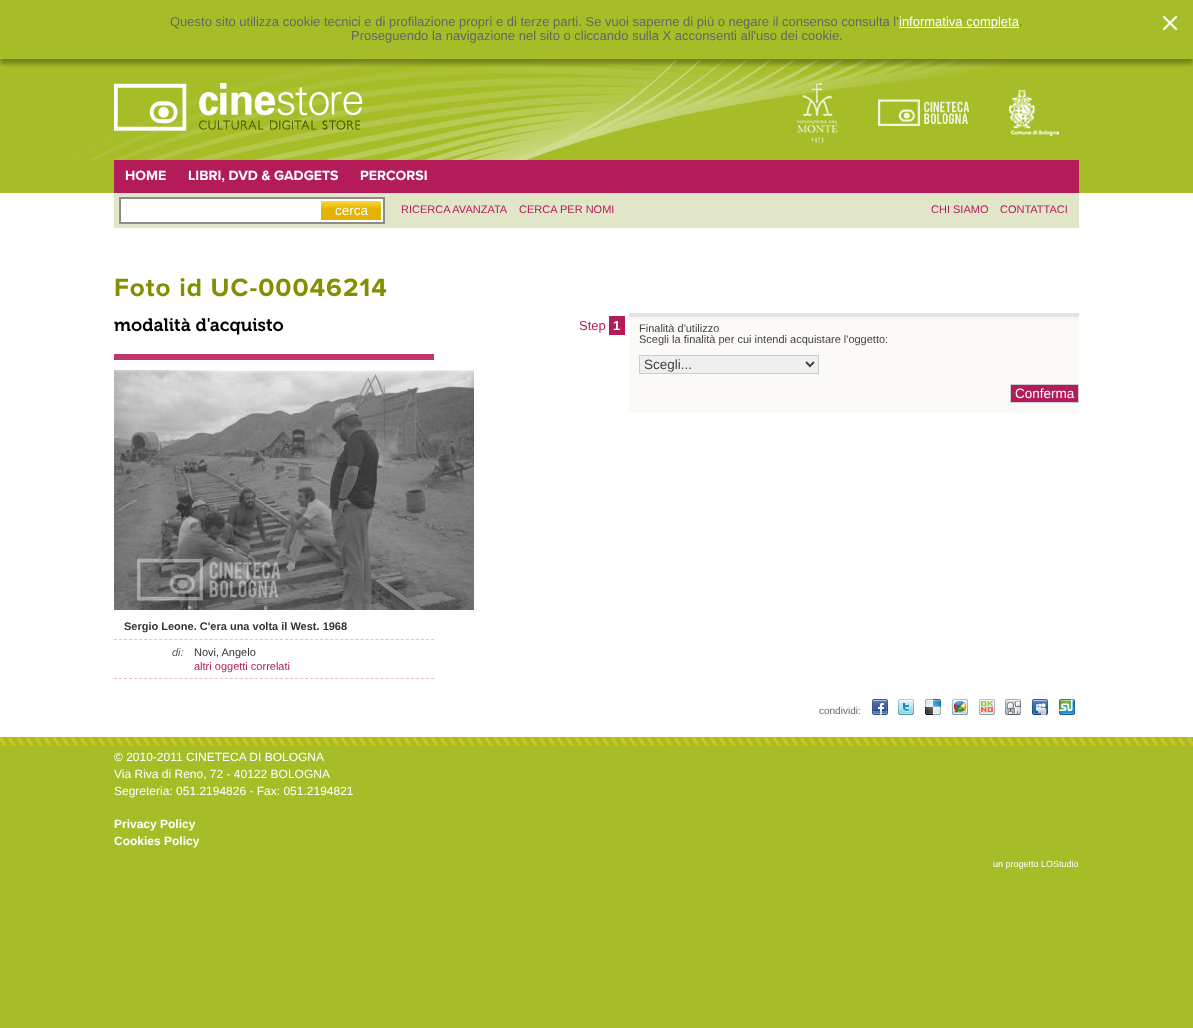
<?xml version="1.0" encoding="UTF-8"?>
<svg xmlns="http://www.w3.org/2000/svg" xmlns:xlink="http://www.w3.org/1999/xlink" width="1193" height="1028">
  <defs>
    <clipPath id="clip1"><rect x="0" y="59" width="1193" height="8" /></clipPath>
  </defs>
  <rect width="100%" height="100%" fill="#a6bd28" />
  <image x="69" y="60" width="940" height="100" xlink:href="image2.png" />
  <g clip-path="url(#clip1)">
    <rect y="5" width="1193" height="59" fill="#000000" fill-opacity="0.3" filter="blur(2px)" />
  </g>
  <rect x="899" y="27" width="120" height="1" fill="#ffffff" />
  <image x="1162" y="15" width="16" height="16" xlink:href="image1.png" />
  <image x="114" y="83" width="249" height="48" xlink:href="image3.png" />
  <image x="796" y="83" width="43" height="60" xlink:href="image4.png" />
  <image x="878" y="99" width="92" height="27" xlink:href="image5.png" />
  <image x="1009" y="90" width="50" height="46" xlink:href="image6.png" />
  <rect x="114" y="160" width="965" height="33" fill="#b41b59" />
  <rect y="193" width="1193" height="544" fill="#ffffff" />
  <rect x="114" y="193" width="965" height="35" fill="#e1e6c9" />
  <rect x="120" y="198" width="264" height="25" fill="#ffffff" stroke="#8e8b88" stroke-width="2" />
  <rect x="321" y="208" width="60" height="12" fill="#e3b300" />
  <image x="321" y="201" width="60" height="7" xlink:href="image7.png" />
  <rect x="114" y="354" width="320" height="6" fill="#bd376d" />
  <image x="114" y="370" width="360" height="240" xlink:href="image8.png" />
  <path d="M 114 639.5 h 320" fill="none" stroke="#e3bfce" stroke-dasharray="3 2.03" />
  <path d="M 114 678.5 h 320" fill="none" stroke="#e3bfce" stroke-dasharray="3 2.03" />
  <rect x="629" y="320" width="450" height="93" fill="#fcfaf7" />
  <image x="629" y="313" width="450" height="7" xlink:href="image9.png" />
  <rect x="609" y="316" width="16" height="19" fill="#b41b59" />
  <rect x="639.5" y="355.5" width="179" height="18" fill="#efefef" stroke="#cccccc" />
  <path d="M 806 362 l 4 4 l 4 -4" fill="none" stroke="#454545" stroke-width="2" />
  <rect x="1010.5" y="384.5" width="68" height="18" fill="#b41b59" stroke="#cccccc" />
  <image x="872" y="699" width="16" height="16" xlink:href="image10.png" />
  <image x="898" y="699" width="16" height="16" xlink:href="image11.png" />
  <image x="925" y="699" width="16" height="16" xlink:href="image12.png" />
  <image x="952" y="699" width="16" height="16" xlink:href="image13.png" />
  <image x="979" y="699" width="16" height="16" xlink:href="image14.png" />
  <image x="1005" y="699" width="16" height="16" xlink:href="image15.png" />
  <image x="1032" y="699" width="16" height="16" xlink:href="image16.png" />
  <image x="1059" y="699" width="16" height="16" xlink:href="image17.png" />
  <image x="0" y="737" width="1193" height="9" xlink:href="image18.png" />
  <text x="170" y="26" style="font-family: Liberation Sans; font-size: 13px; fill: #666666">Questo sito utilizza cookie tecnici e di profilazione propri e di terze parti. Se vuoi saperne di più o negare il consenso consulta l'</text>
  <text x="899" y="26" style="font-family: Liberation Sans; font-size: 13px; fill: #ffffff">informativa completa</text>
  <text x="1019" y="26" style="font-family: Liberation Sans; font-size: 13px; fill: #666666">.</text>
  <text x="351" y="40" style="font-family: Liberation Sans; font-size: 13px; fill: #666666">Proseguendo la navigazione nel sito o cliccando sulla X acconsenti all'uso dei cookie.</text>
  <text x="125" y="180" style="font-family: Proxima Nova; font-size: 14px; font-weight: bold; fill: #ffffff">HOME</text>
  <text x="188" y="180" style="font-family: Proxima Nova; font-size: 14px; font-weight: bold; fill: #ffffff">LIBRI, DVD &amp; GADGETS</text>
  <text x="360" y="180" style="font-family: Proxima Nova; font-size: 14px; font-weight: bold; fill: #ffffff">PERCORSI</text>
  <text x="335" y="215" style="font-family: Liberation Sans; font-size: 13.5px; fill: #ffffff">cerca</text>
  <text x="401" y="213" style="font-family: Liberation Sans; font-size: 11px; fill: #b41b59">RICERCA AVANZATA</text>
  <text x="519" y="213" style="font-family: Liberation Sans; font-size: 11px; fill: #b41b59">CERCA PER NOMI</text>
  <text x="931" y="213" style="font-family: Liberation Sans; font-size: 11px; fill: #b41b59">CHI SIAMO</text>
  <text x="1000" y="213" style="font-family: Liberation Sans; font-size: 11px; fill: #b41b59">CONTATTACI</text>
  <text x="114" y="296" style="font-family: Proxima Nova; font-size: 26px; font-weight: bold; letter-spacing: 1px; fill: #848f00">Foto id UC-00046214</text>
  <text x="114" y="331" style="font-family: 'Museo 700'; font-size: 18px; font-weight: 600; fill: #000000">modalità d'acquisto</text>
  <text x="124" y="630" style="font-family: Liberation Sans; font-size: 11px; font-weight: bold; fill: #333333">Sergio Leone. C'era una volta il West. 1968</text>
  <text x="172" y="656" style="font-family: Liberation Sans; font-size: 11px; font-style: italic; fill: #5c5c5c">di:</text>
  <text x="194" y="656" style="font-family: Liberation Sans; font-size: 11px; fill: #333333">Novi, Angelo</text>
  <text x="194" y="670" style="font-family: Liberation Sans; font-size: 11px; fill: #b41b59">altri oggetti correlati</text>
  <text x="579" y="330" style="font-family: Liberation Sans; font-size: 13px; fill: #b41b59">Step</text>
  <text x="613" y="330" style="font-family: Liberation Sans; font-size: 13px; font-weight: bold; fill: #ffffff">1</text>
  <text x="639" y="332" style="font-family: Liberation Sans; font-size: 11px; fill: #444444">Finalità d'utilizzo</text>
  <text x="639" y="343" style="font-family: Liberation Sans; font-size: 11px; fill: #444444">Scegli la finalità per cui intendi acquistare l'oggetto:</text>
  <text x="644" y="369" style="font-family: Liberation Sans; font-size: 13.5px; fill: #444444">Scegli...</text>
  <text x="1015" y="398" style="font-family: Liberation Sans; font-size: 13.5px; fill: #ffffff">Conferma</text>
  <text x="819" y="714" style="font-family: Liberation Sans; font-size: 10px; fill: #666666">condividi:</text>
  <text x="114" y="761" style="font-family: Liberation Sans; font-size: 12px; fill: #ffffff">© 2010-2011 CINETECA DI BOLOGNA</text>
  <text x="114" y="778" style="font-family: Liberation Sans; font-size: 12px; fill: #ffffff">Via Riva di Reno, 72 - 40122 BOLOGNA</text>
  <text x="114" y="795" style="font-family: Liberation Sans; font-size: 12px; fill: #ffffff">Segreteria: 051.2194826 - Fax: 051.2194821</text>
  <text x="114" y="828" style="font-family: Liberation Sans; font-size: 12px; font-weight: bold; fill: #ffffff">Privacy Policy</text>
  <text x="114" y="845" style="font-family: Liberation Sans; font-size: 12px; font-weight: bold; fill: #ffffff">Cookies Policy</text>
  <text x="993" y="867" style="font-family: Liberation Sans; font-size: 9px; fill: #ffffff">un progetto LOStudio</text>
</svg>
